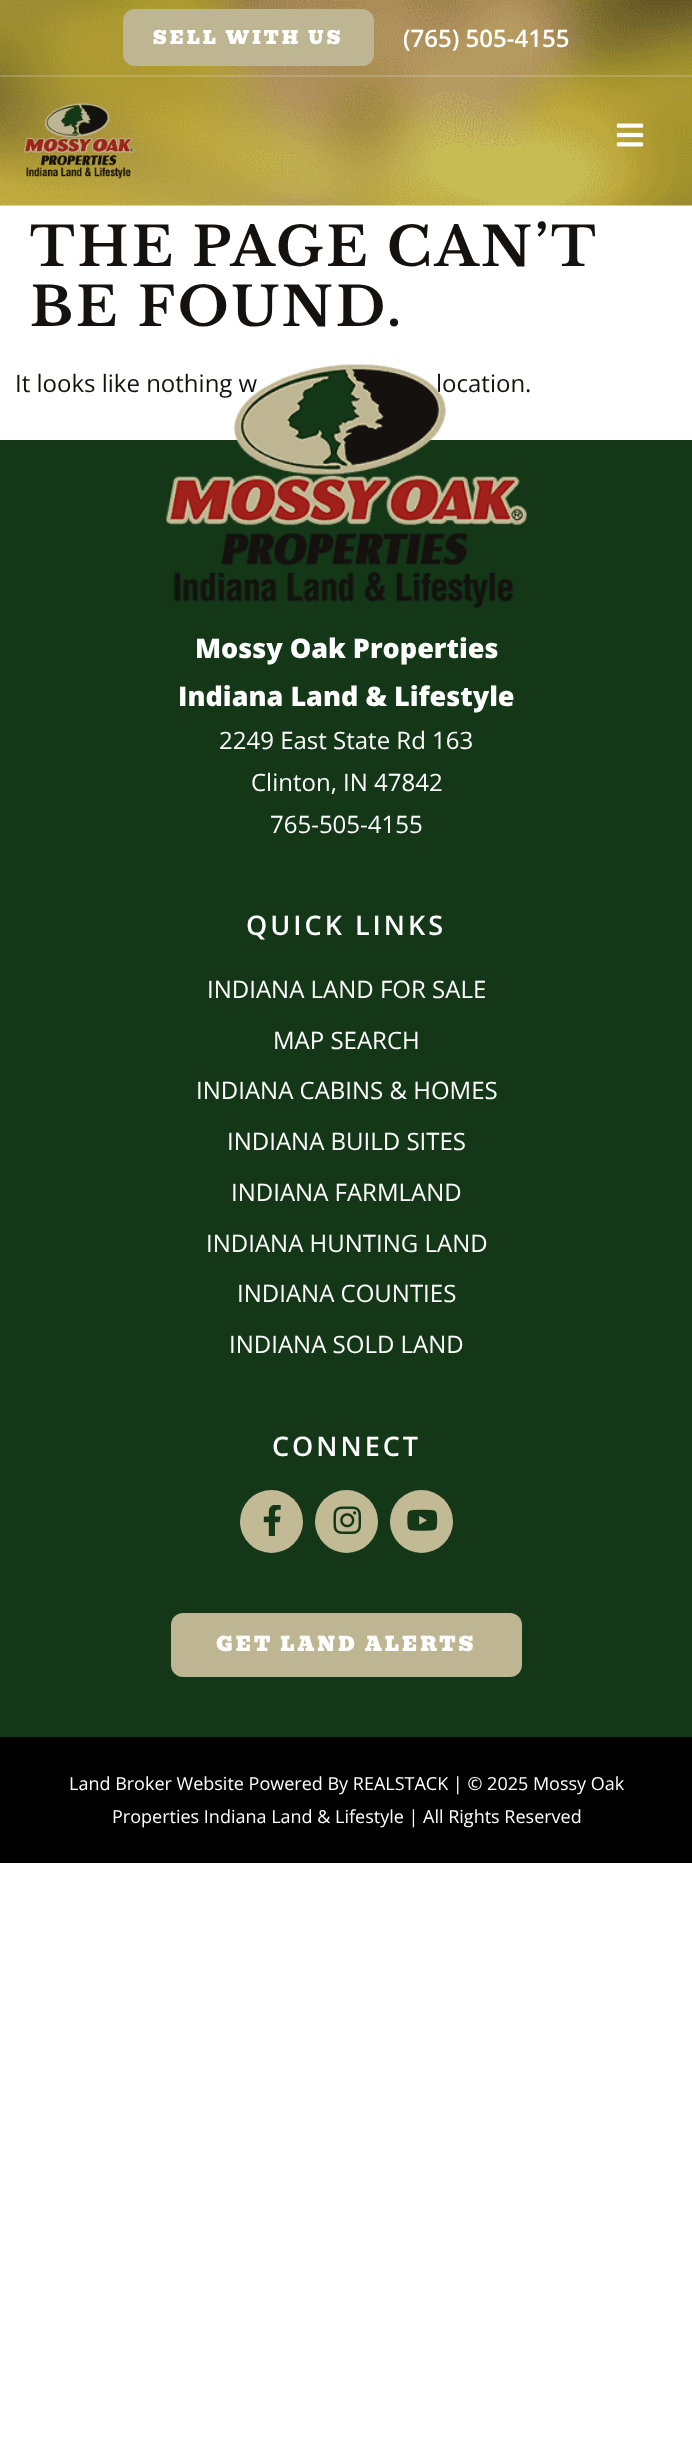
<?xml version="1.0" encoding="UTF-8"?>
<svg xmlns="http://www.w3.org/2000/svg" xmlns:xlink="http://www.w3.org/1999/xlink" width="692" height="2447">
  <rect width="100%" height="100%" fill="#ffffff" />
  <image x="0" y="0" width="692" height="206" xlink:href="image1.png" />
  <rect y="75" width="692" height="2" fill="#eeeeee" fill-opacity="0.21" />
  <rect x="123" y="9" width="251" height="57" rx="12" fill="#beb592" />
  <image x="24" y="103" width="111" height="76" xlink:href="image2.png" />
  <image x="616" y="123" width="28" height="24" xlink:href="image3.png" />
  <rect y="440" width="692" height="1297" fill="#143718" />
  <circle cx="271.5" cy="1521.5" r="31.5" fill="#c2b995" />
  <image x="263" y="1505" width="18" height="31" xlink:href="image5.png" />
  <circle cx="346.5" cy="1521.5" r="31.5" fill="#c2b995" />
  <image x="333" y="1506" width="29" height="28" xlink:href="image6.png" />
  <circle cx="421.5" cy="1521.5" r="31.5" fill="#c2b995" />
  <image x="407" y="1509" width="31" height="22" xlink:href="image7.png" />
  <rect x="171" y="1613" width="351" height="64" rx="12" fill="#beb592" />
  <rect y="1737" width="692" height="126" fill="#000000" />
  <text x="153" y="44" style="font-family: Bevan; font-size: 18px; letter-spacing: 3px; fill: #ffffff">SELL WITH US</text>
  <text x="403" y="47" style="font-family: Open Sans; font-size: 24px; font-weight: 600; fill: #ffffff">(765) 505-4155</text>
  <text x="30" y="266" word-spacing="-1" style="font-family: Libre Baskerville; font-size: 54px; font-weight: bold; letter-spacing: 3px; fill: #14110f">THE PAGE CAN’T</text>
  <text x="30" y="326" style="font-family: Libre Baskerville; font-size: 54px; font-weight: bold; letter-spacing: 3px; fill: #14110f">BE FOUND.</text>
  <text x="15" y="392" style="font-family: Open Sans; font-size: 24px; fill: #14110f">It looks like nothing w</text>
  <text x="436" y="392" style="font-family: Open Sans; font-size: 24px; fill: #14110f">location.</text>
  <image x="166" y="364" width="361" height="244" xlink:href="image4.png" />
  <text x="195" y="658" style="font-family: Open Sans; font-size: 27px; font-weight: 800; fill: #ffffff">Mossy Oak Properties</text>
  <text x="178" y="706" style="font-family: Open Sans; font-size: 27px; font-weight: 800; fill: #ffffff">Indiana Land &amp; Lifestyle</text>
  <text x="219" y="749" style="font-family: Open Sans; font-size: 24px; fill: #ffffff">2249 East State Rd 163</text>
  <text x="251" y="791" style="font-family: Open Sans; font-size: 24px; fill: #ffffff">Clinton, IN 47842</text>
  <text x="270" y="833" style="font-family: Open Sans; font-size: 24px; fill: #ffffff">765-505-4155</text>
  <text x="246" y="935" style="font-family: Open Sans; font-size: 27px; font-weight: 600; letter-spacing: 3px; fill: #ffffff">QUICK LINKS</text>
  <text x="207" y="998" style="font-family: Open Sans; font-size: 24px; fill: #ffffff">INDIANA LAND FOR SALE</text>
  <text x="273" y="1049" style="font-family: Open Sans; font-size: 24px; fill: #ffffff">MAP SEARCH</text>
  <text x="196" y="1099" style="font-family: Open Sans; font-size: 24px; fill: #ffffff">INDIANA CABINS &amp; HOMES</text>
  <text x="227" y="1150" style="font-family: Open Sans; font-size: 24px; fill: #ffffff">INDIANA BUILD SITES</text>
  <text x="231" y="1201" style="font-family: Open Sans; font-size: 24px; fill: #ffffff">INDIANA FARMLAND</text>
  <text x="206" y="1252" style="font-family: Open Sans; font-size: 24px; fill: #ffffff">INDIANA HUNTING LAND</text>
  <text x="237" y="1302" style="font-family: Open Sans; font-size: 24px; fill: #ffffff">INDIANA COUNTIES</text>
  <text x="229" y="1353" style="font-family: Open Sans; font-size: 24px; fill: #ffffff">INDIANA SOLD LAND</text>
  <text x="272" y="1456" style="font-family: Open Sans; font-size: 27px; font-weight: 600; letter-spacing: 3px; fill: #ffffff">CONNECT</text>
  <text x="216" y="1651" style="font-family: Bevan; font-size: 19.5px; letter-spacing: 3px; fill: #ffffff">GET LAND ALERTS</text>
  <text x="69" y="1790" style="font-family: Open Sans; font-size: 18px; fill: #ffffff">Land Broker Website Powered By REALSTACK | © 2025 Mossy Oak</text>
  <text x="112" y="1823" style="font-family: Open Sans; font-size: 18px; fill: #ffffff">Properties Indiana Land &amp; Lifestyle | All Rights Reserved</text>
</svg>
